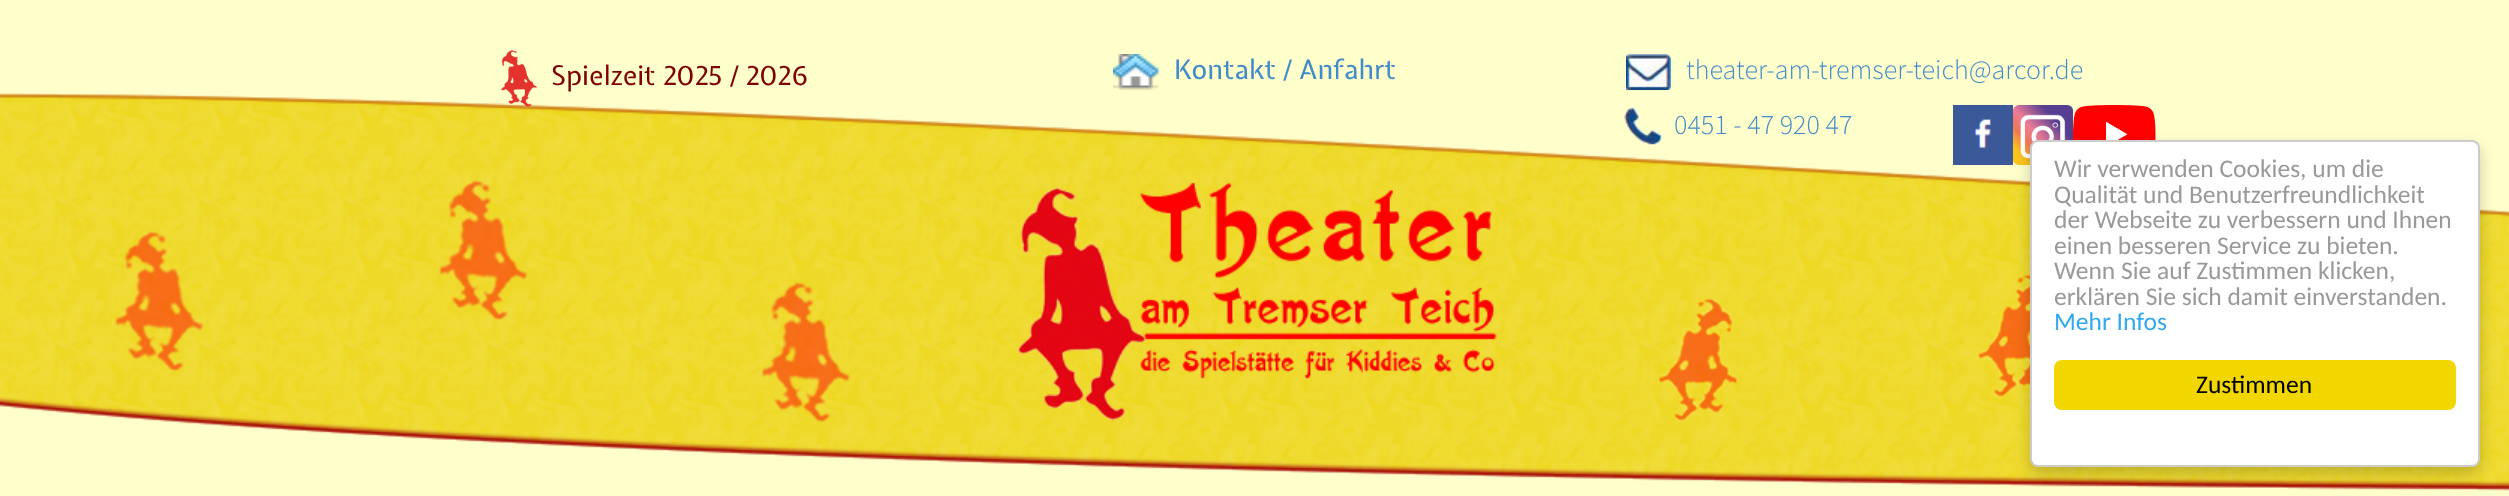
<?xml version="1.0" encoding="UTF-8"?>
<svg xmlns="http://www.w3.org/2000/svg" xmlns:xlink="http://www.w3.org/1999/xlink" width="2509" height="496">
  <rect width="100%" height="100%" fill="#ffffcc" />
  <image x="0" y="92" width="2509" height="399" xlink:href="image1.png" />
  <image x="501" y="50" width="36" height="57" xlink:href="image2.png" />
  <image x="1113" y="54" width="47" height="36" xlink:href="image3.png" />
  <image x="1626" y="54" width="45" height="36" xlink:href="image4.png" />
  <image x="1624" y="108" width="38" height="38" xlink:href="image5.png" />
  <image x="1953" y="105" width="60" height="60" xlink:href="image6.png" />
  <image x="2013" y="105" width="60" height="60" xlink:href="image7.png" />
  <image x="2073" y="105" width="83" height="35" xlink:href="image8.png" />
  <rect x="2030" y="147" width="450" height="327" rx="8" fill="#000000" fill-opacity="0.2" filter="blur(7.5px)" />
  <rect x="2031" y="141" width="448" height="325" rx="7" fill="#ffffff" stroke="#cccccc" stroke-width="2" />
  <rect x="2054" y="360" width="402" height="50" rx="8" fill="#f1d600" />
  <text x="551" y="85" style="font-family: Expletus Sans; font-size: 27px; fill: #7f0000">Spielzeit 2025 / 2026</text>
  <text x="1174" y="79" style="font-family: Expletus Sans; font-size: 27px; fill: #428bca">Kontakt / Anfahrt</text>
  <text x="1686" y="79" style="font-family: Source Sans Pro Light; font-size: 28px; font-weight: 300; fill: #428bca">theater-am-tremser-teich@arcor.de</text>
  <text x="1674" y="134" style="font-family: Source Sans Pro Light; font-size: 28px; font-weight: 300; fill: #428bca">0451 - 47 920 47</text>
  <text x="2054" y="177" style="font-family: Carlito; font-size: 25.5px; fill: #999999">Wir verwenden Cookies, um die</text>
  <text x="2054" y="203" style="font-family: Carlito; font-size: 25.5px; fill: #999999">Qualität und Benutzerfreundlichkeit</text>
  <text x="2054" y="228" style="font-family: Carlito; font-size: 25.5px; fill: #999999">der Webseite zu verbessern und Ihnen</text>
  <text x="2054" y="254" style="font-family: Carlito; font-size: 25.5px; fill: #999999">einen besseren Service zu bieten.</text>
  <text x="2054" y="279" style="font-family: Carlito; font-size: 25.5px; fill: #999999">Wenn Sie auf Zustimmen klicken,</text>
  <text x="2054" y="305" style="font-family: Carlito; font-size: 25.5px; fill: #999999">erklären Sie sich damit einverstanden.</text>
  <text x="2054" y="330" style="font-family: Carlito; font-size: 25.5px; fill: #31a8f0">Mehr Infos</text>
  <text x="2196" y="393" style="font-family: Carlito; font-size: 25.5px; fill: #000000">Zustimmen</text>
</svg>
